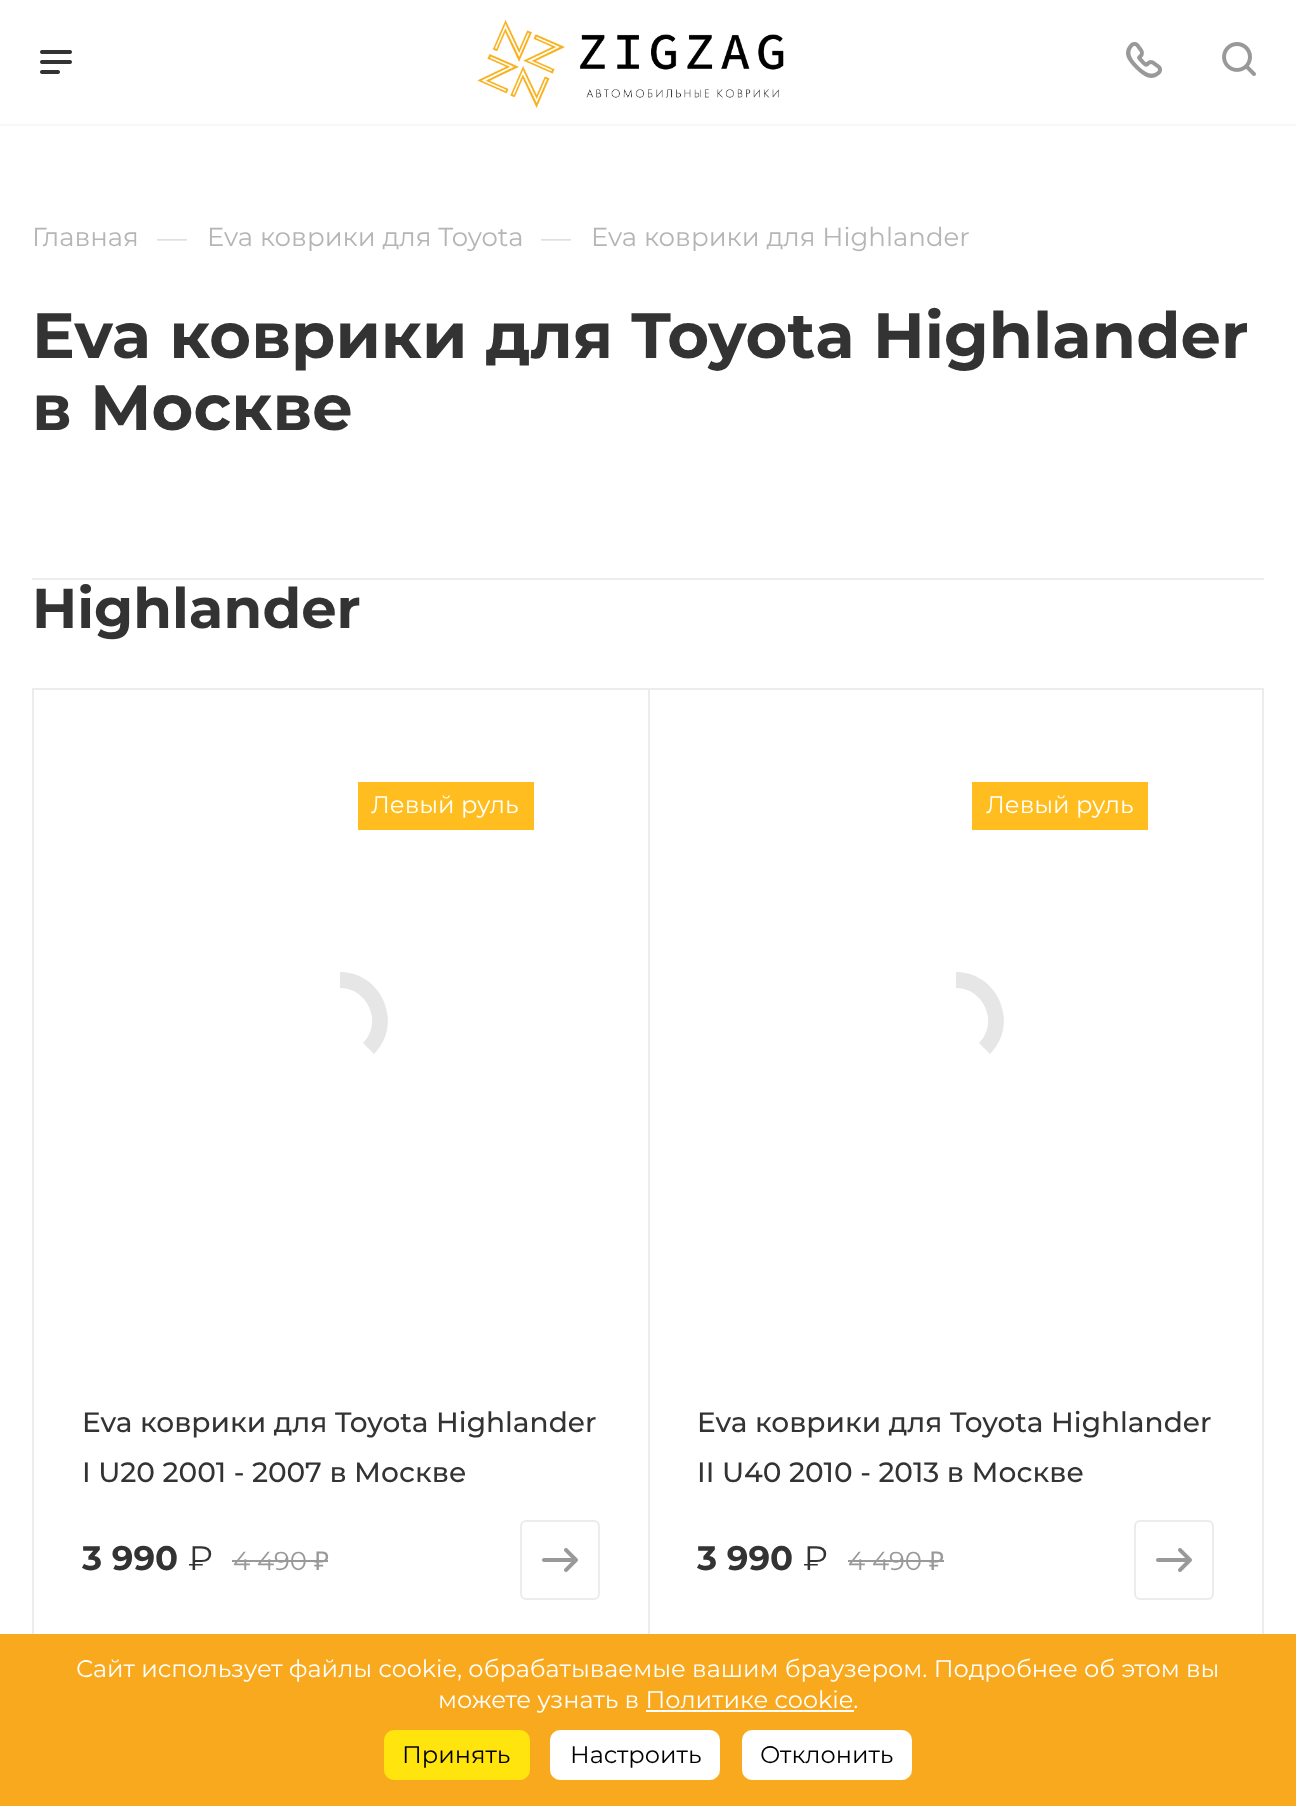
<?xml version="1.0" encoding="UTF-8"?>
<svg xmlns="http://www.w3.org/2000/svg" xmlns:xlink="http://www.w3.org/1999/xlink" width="1296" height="1806">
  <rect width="100%" height="100%" fill="#ffffff" />
  <rect y="124" width="1296" height="2" fill="#f8f8f8" />
  <image x="40" y="50" width="32" height="24" xlink:href="image1.png" />
  <image x="477" y="20" width="307" height="88" xlink:href="image2.png" />
  <image x="1126" y="42" width="36" height="36" xlink:href="image3.png" />
  <image x="1222" y="42" width="34" height="34" xlink:href="image4.png" />
  <rect x="32" y="578" width="1232" height="2" fill="#ececec" />
  <rect x="33" y="689" width="616" height="968" fill="none" stroke="#ececec" stroke-width="2" />
  <rect x="358" y="782" width="176" height="48" fill="#ffbd1f" />
  <path d="M 340 972 c 42 0 64 52 34 82 l -11 -11 c 20 -20 5 -55 -23 -55 z" fill="#e6e6e6" />
  <rect x="232" y="1560" width="96" height="2" fill="#999999" />
  <rect x="521" y="1521" width="78" height="78" rx="5" fill="none" stroke="#ececec" stroke-width="2" />
  <image x="542" y="1548" width="36" height="24" xlink:href="image5.png" />
  <rect x="649" y="689" width="614" height="968" fill="none" stroke="#ececec" stroke-width="2" />
  <rect x="972" y="782" width="176" height="48" fill="#ffbd1f" />
  <path d="M 956 972 c 42 0 64 52 34 82 l -11 -11 c 20 -20 5 -55 -23 -55 z" fill="#e6e6e6" />
  <rect x="848" y="1560" width="96" height="2" fill="#999999" />
  <rect x="1135" y="1521" width="78" height="78" rx="5" fill="none" stroke="#ececec" stroke-width="2" />
  <image x="1156" y="1548" width="36" height="24" xlink:href="image5.png" />
  <rect y="1634" width="1296" height="172" fill="#f9a91d" />
  <rect x="646" y="1710" width="208" height="2" fill="#ffffff" />
  <rect x="384" y="1730" width="146" height="50" rx="10" fill="#ffe40e" />
  <rect x="550" y="1730" width="170" height="50" rx="10" fill="#ffffff" />
  <rect x="742" y="1730" width="170" height="50" rx="10" fill="#ffffff" />
  <text x="32" y="246" style="font-family: 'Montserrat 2'; font-size: 26px; fill: #b6b5b5">Главная</text>
  <text x="157" y="248" style="font-family: 'Montserrat 2'; font-size: 30px; fill: #dddddd">—</text>
  <text x="207" y="246" style="font-family: 'Montserrat 2'; font-size: 26px; fill: #b6b5b5">Eva коврики для Toyota</text>
  <text x="541" y="248" style="font-family: 'Montserrat 2'; font-size: 30px; fill: #dddddd">—</text>
  <text x="591" y="246" style="font-family: 'Montserrat 2'; font-size: 26px; fill: #b6b5b5">Eva коврики для Highlander</text>
  <text x="32" y="358" style="font-family: Montserrat; font-size: 64px; font-weight: bold; fill: #333333">Eva коврики для Toyota Highlander</text>
  <text x="32" y="430" style="font-family: Montserrat; font-size: 64px; font-weight: bold; fill: #333333">в Москве</text>
  <text x="32" y="628" style="font-family: Montserrat; font-size: 56px; font-weight: bold; fill: #333333">Highlander</text>
  <text x="371" y="813" style="font-family: 'Montserrat 2'; font-size: 24px; fill: #ffffff">Левый руль</text>
  <text x="82" y="1432" style="font-family: Montserrat; font-size: 28px; font-weight: 500; fill: #333333">Eva коврики для Toyota Highlander</text>
  <text x="82" y="1482" style="font-family: Montserrat; font-size: 28px; font-weight: 500; fill: #333333">I U20 2001 - 2007 в Москве</text>
  <text x="82" y="1570" style="font-family: Montserrat; font-size: 34px; font-weight: bold; fill: #333333">3 990</text>
  <text x="188" y="1570" style="font-family: Montserrat; font-size: 34px; fill: #333333">₽</text>
  <text x="233" y="1570" style="font-family: 'Montserrat 2'; font-size: 26px; fill: #999999">4 490</text>
  <text x="314" y="1570" style="font-family: Noto Sans; font-size: 26px; fill: #999999">₽</text>
  <text x="986" y="813" style="font-family: 'Montserrat 2'; font-size: 24px; fill: #ffffff">Левый руль</text>
  <text x="697" y="1432" style="font-family: Montserrat; font-size: 28px; font-weight: 500; fill: #333333">Eva коврики для Toyota Highlander</text>
  <text x="697" y="1482" style="font-family: Montserrat; font-size: 28px; font-weight: 500; fill: #333333">II U40 2010 - 2013 в Москве</text>
  <text x="697" y="1570" style="font-family: Montserrat; font-size: 34px; font-weight: bold; fill: #333333">3 990</text>
  <text x="803" y="1570" style="font-family: Montserrat; font-size: 34px; fill: #333333">₽</text>
  <text x="848" y="1570" style="font-family: 'Montserrat 2'; font-size: 26px; fill: #999999">4 490</text>
  <text x="929" y="1570" style="font-family: Noto Sans; font-size: 26px; fill: #999999">₽</text>
  <text x="76" y="1677" style="font-family: 'Montserrat 2'; font-size: 24px; fill: #ffffff">Сайт использует файлы cookie, обрабатываемые вашим браузером. Подробнее об этом вы</text>
  <text x="438" y="1708" style="font-family: 'Montserrat 2'; font-size: 24px; fill: #ffffff">можете узнать в Политике cookie.</text>
  <text x="402" y="1763" style="font-family: 'Montserrat 2'; font-size: 24px; fill: #000000">Принять</text>
  <text x="570" y="1763" style="font-family: 'Montserrat 2'; font-size: 24px; fill: #000000">Настроить</text>
  <text x="760" y="1763" style="font-family: 'Montserrat 2'; font-size: 24px; fill: #000000">Отклонить</text>
</svg>
